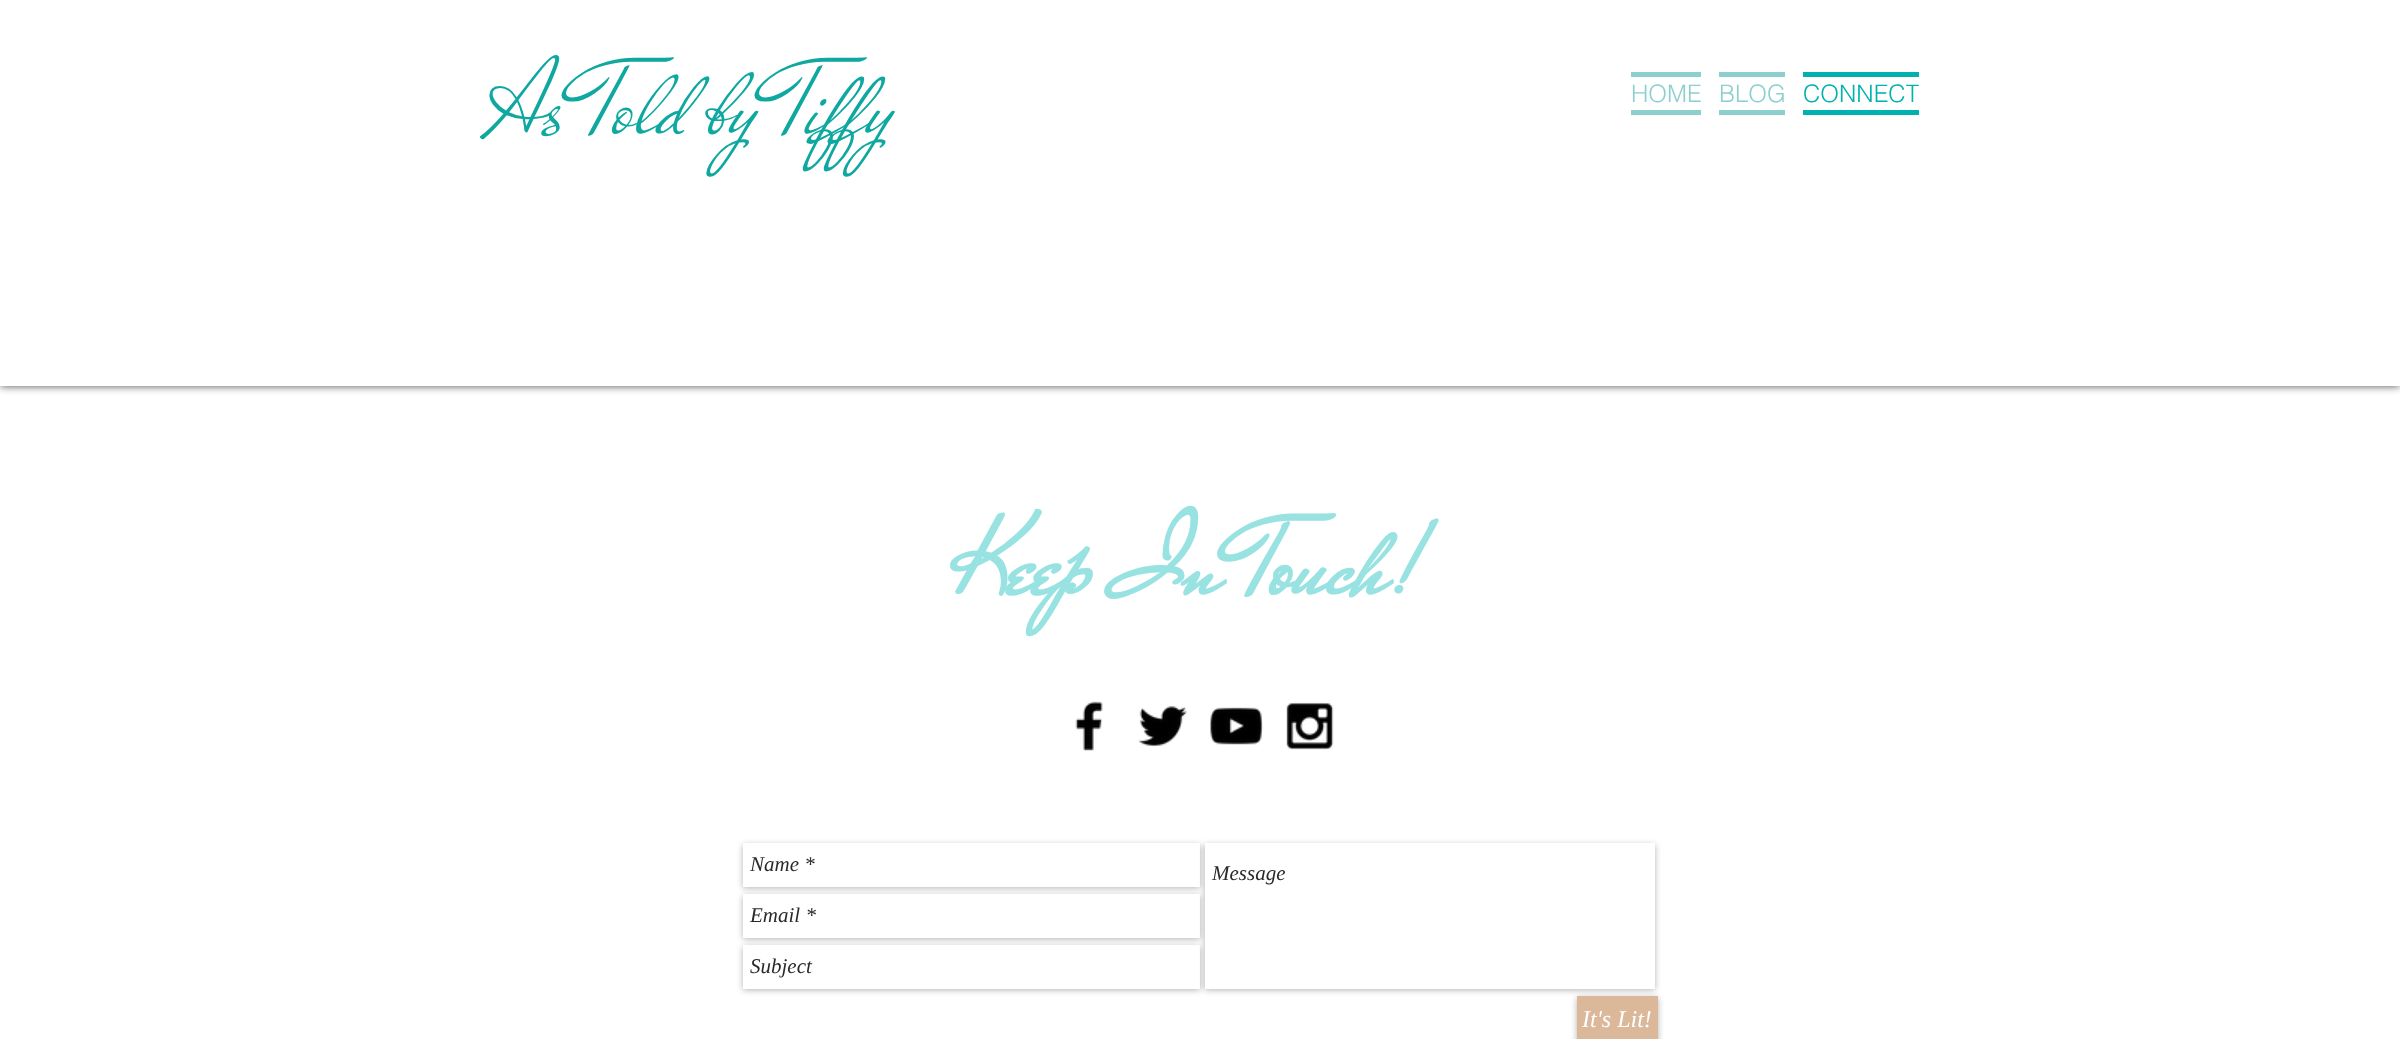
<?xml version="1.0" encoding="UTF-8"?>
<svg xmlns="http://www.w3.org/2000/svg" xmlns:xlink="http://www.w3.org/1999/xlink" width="2400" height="1039">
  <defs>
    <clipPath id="clip1"><path d="M 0 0 h 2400 v 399 h -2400 z m 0 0 h 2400 v 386 h -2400 z" clip-rule="evenodd" /></clipPath>
  </defs>
  <rect width="100%" height="100%" fill="#ffffff" />
  <g clip-path="url(#clip1)">
    <rect width="2400" height="386" fill="#000000" fill-opacity="0.7" filter="blur(4px)" />
  </g>
  <rect y="385" width="2400" height="1" fill="#ffffff" fill-opacity="0.6" />
  <rect x="1631" y="72" width="70" height="5" fill="#8bd0cd" />
  <rect x="1631" y="110" width="70" height="5" fill="#8bd0cd" />
  <rect x="1719" y="72" width="66" height="5" fill="#8bd0cd" />
  <rect x="1719" y="110" width="66" height="5" fill="#8bd0cd" />
  <rect x="1803" y="72" width="116" height="5" fill="#01b1af" />
  <rect x="1803" y="110" width="116" height="5" fill="#01b1af" />
  <image x="1075" y="701" width="28" height="50" xlink:href="image1.png" />
  <image x="1138" y="706" width="49" height="41" xlink:href="image2.png" />
  <image x="1210" y="707" width="53" height="38" xlink:href="image3.png" />
  <image x="1286" y="702" width="48" height="48" xlink:href="image4.png" />
  <rect x="743" y="845" width="457" height="43" fill="#000000" fill-opacity="0.3" filter="blur(3px)" />
  <rect x="743" y="843" width="457" height="44" fill="#ffffff" />
  <rect x="743" y="896" width="457" height="43" fill="#000000" fill-opacity="0.3" filter="blur(3px)" />
  <rect x="743" y="894" width="457" height="44" fill="#ffffff" />
  <rect x="743" y="947" width="457" height="43" fill="#000000" fill-opacity="0.3" filter="blur(3px)" />
  <rect x="743" y="945" width="457" height="44" fill="#ffffff" />
  <rect x="1205" y="845" width="450" height="145" fill="#000000" fill-opacity="0.3" filter="blur(3px)" />
  <rect x="1205" y="843" width="450" height="146" fill="#ffffff" />
  <rect x="1577" y="998" width="81" height="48" fill="#000000" fill-opacity="0.3" filter="blur(3px)" />
  <rect x="1577" y="996" width="81" height="43" fill="#dbb89a" />
  <text x="488" y="132" style="font-family: Mr De Haviland; font-size: 108px; fill: #0fa8a1">As Told by Tiffy</text>
  <text x="1631" y="102" style="font-family: helvetica; font-size: 24px; font-weight: 300; fill: #8bd0cd">HOME</text>
  <text x="1719" y="102" style="font-family: helvetica; font-size: 24px; font-weight: 300; fill: #8bd0cd">BLOG</text>
  <text x="1803" y="102" style="font-family: helvetica; font-size: 24px; font-weight: 300; fill: #01b1af">CONNECT</text>
  <text x="950" y="593" style="font-family: Mr De Haviland; font-size: 111px; font-weight: bold; fill: #99e2e2">Keep In Touch!</text>
  <text x="750" y="871" style="font-family: Liberation Serif; font-size: 21px; font-style: italic; fill: #2a2a2a">Name *</text>
  <text x="1212" y="880" style="font-family: Liberation Serif; font-size: 21px; font-style: italic; fill: #2a2a2a">Message</text>
  <text x="750" y="922" style="font-family: Liberation Serif; font-size: 21px; font-style: italic; fill: #2a2a2a">Email *</text>
  <text x="750" y="973" style="font-family: Liberation Serif; font-size: 21px; font-style: italic; fill: #2a2a2a">Subject</text>
  <text x="1582" y="1027" style="font-family: Liberation Serif; font-size: 24px; font-style: italic; fill: #ffffff">It's Lit!</text>
</svg>
